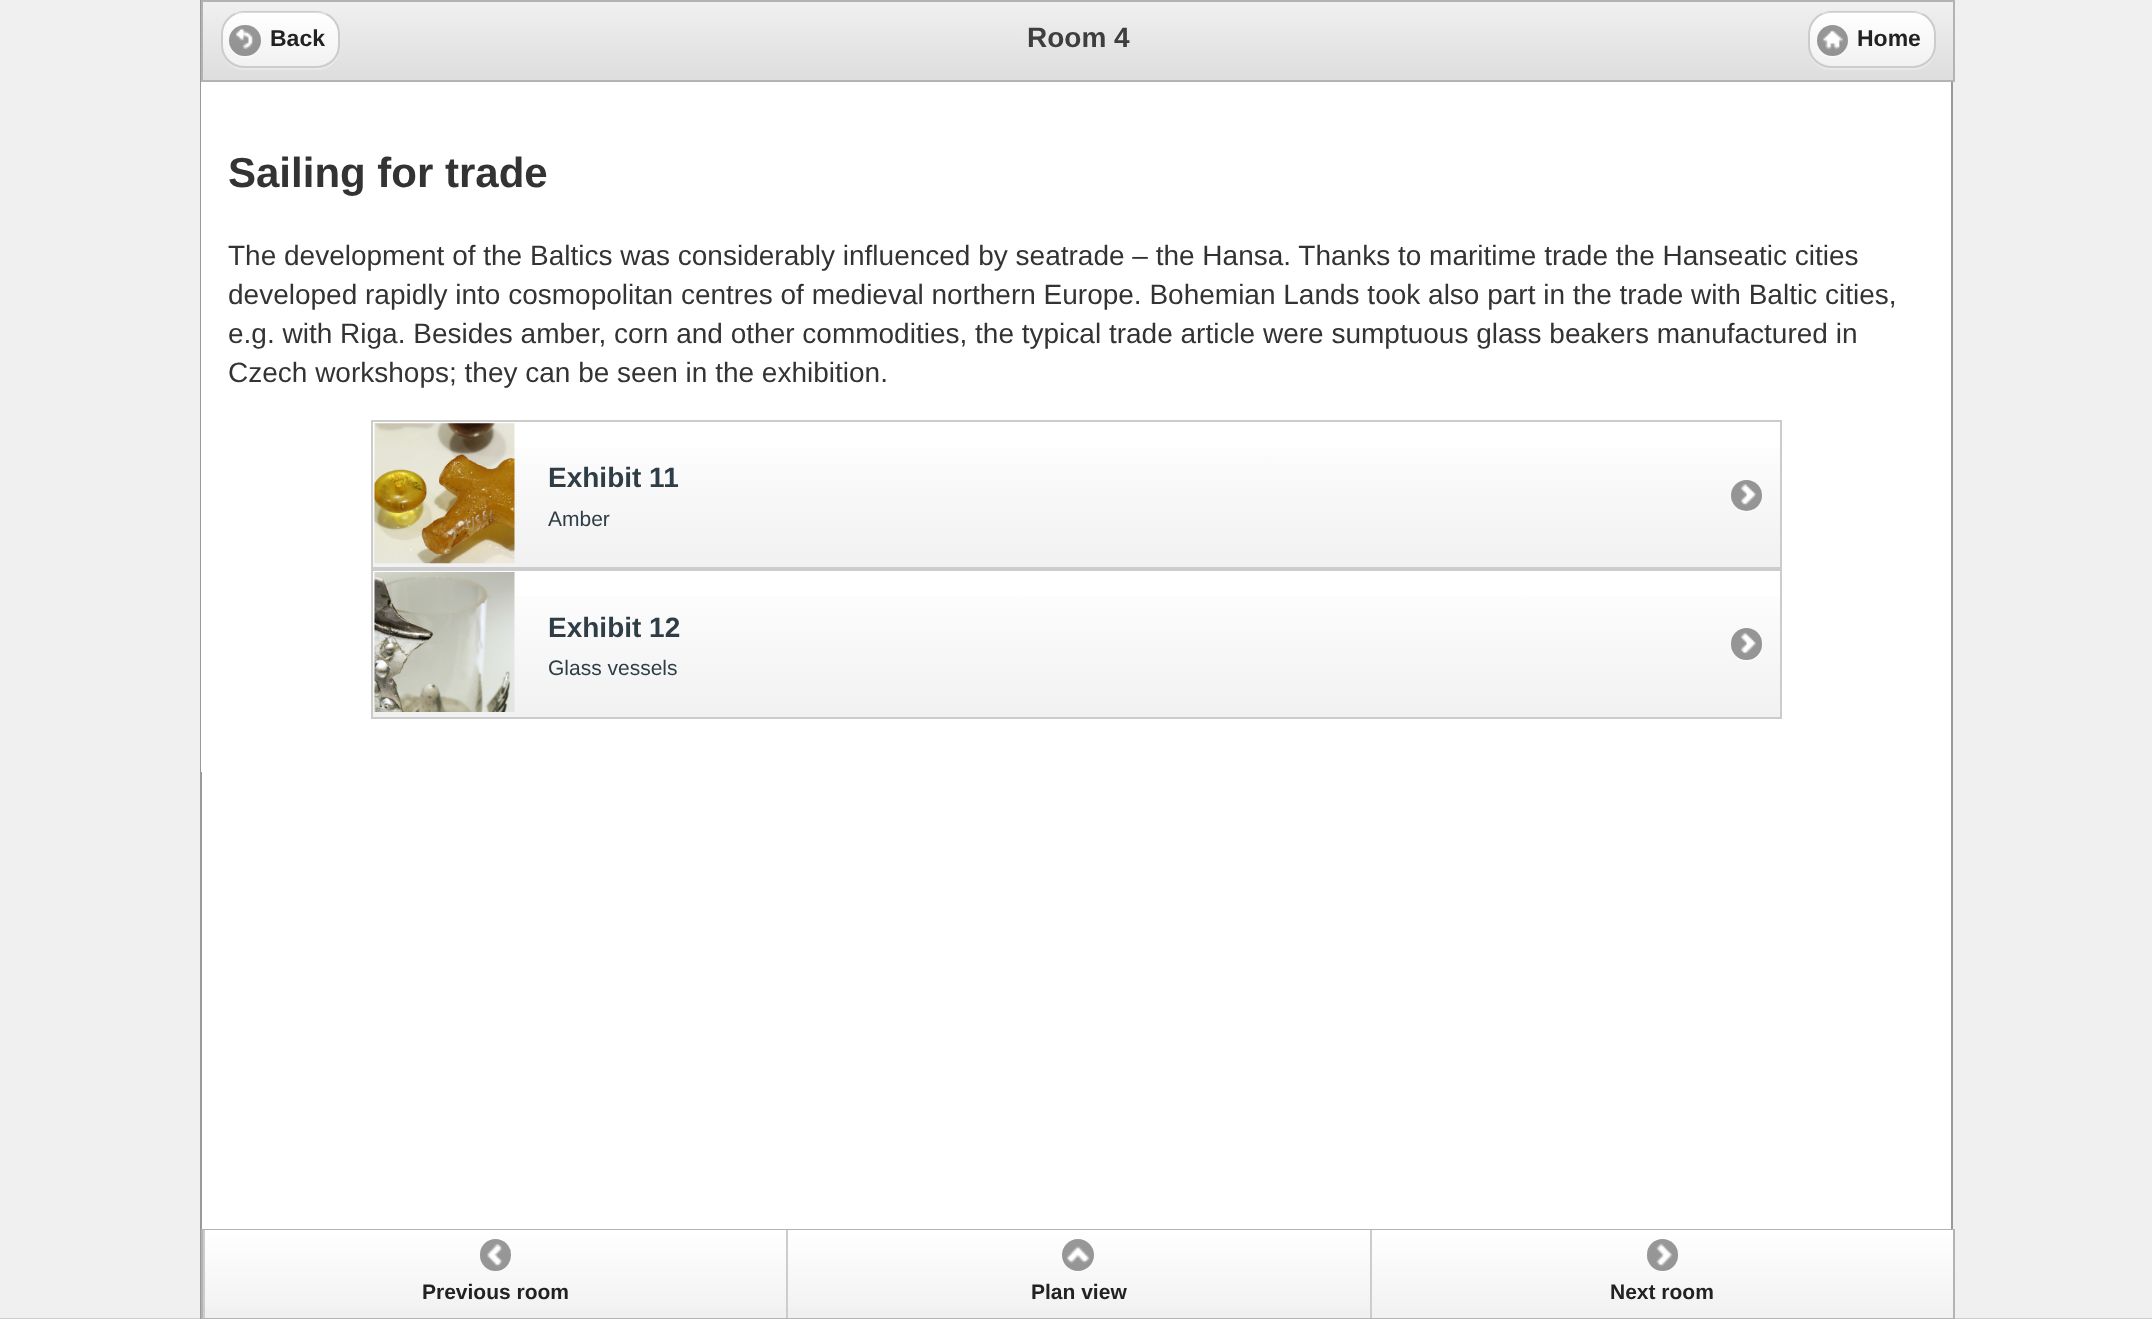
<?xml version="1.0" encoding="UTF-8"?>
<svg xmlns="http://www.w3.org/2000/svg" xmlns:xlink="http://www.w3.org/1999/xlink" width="2152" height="1319">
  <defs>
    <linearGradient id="g1" gradientUnits="userSpaceOnUse" x1="1078" y1="1.7" x2="1078" y2="81"><stop offset="0" stop-color="#f0f0f0" /><stop offset="1" stop-color="#dddddd" /></linearGradient>
    <linearGradient id="g2" gradientUnits="userSpaceOnUse" x1="280" y1="12" x2="280" y2="67"><stop offset="0" stop-color="#ffffff" /><stop offset="1" stop-color="#f1f1f1" /></linearGradient>
    <linearGradient id="g3" gradientUnits="userSpaceOnUse" x1="1872" y1="12" x2="1872" y2="67"><stop offset="0" stop-color="#ffffff" /><stop offset="1" stop-color="#f1f1f1" /></linearGradient>
    <linearGradient id="g4" gradientUnits="userSpaceOnUse" x1="1076" y1="422" x2="1076" y2="567"><stop offset="0" stop-color="#ffffff" /><stop offset="1" stop-color="#f1f1f1" /></linearGradient>
    <linearGradient id="g5" gradientUnits="userSpaceOnUse" x1="1076" y1="570" x2="1076" y2="718"><stop offset="0" stop-color="#ffffff" /><stop offset="1" stop-color="#f1f1f1" /></linearGradient>
    <linearGradient id="g6" gradientUnits="userSpaceOnUse" x1="495" y1="1230" x2="495" y2="1318"><stop offset="0" stop-color="#ffffff" /><stop offset="1" stop-color="#f1f1f1" /></linearGradient>
    <linearGradient id="g7" gradientUnits="userSpaceOnUse" x1="1079" y1="1230" x2="1079" y2="1318"><stop offset="0" stop-color="#ffffff" /><stop offset="1" stop-color="#f1f1f1" /></linearGradient>
    <linearGradient id="g8" gradientUnits="userSpaceOnUse" x1="1663" y1="1230" x2="1663" y2="1318"><stop offset="0" stop-color="#ffffff" /><stop offset="1" stop-color="#f1f1f1" /></linearGradient>
  </defs>
  <rect width="100%" height="100%" fill="#cccccc" />
  <rect width="2152" height="1318" fill="#f0f0f0" />
  <rect x="202" y="772" width="1749" height="457" fill="#ffffff" />
  <rect x="201" y="-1" width="1751" height="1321" fill="none" stroke="#999999" stroke-width="2" />
  <rect x="203" y="2" width="1750" height="78" fill="url(#g1)" />
  <rect x="202" y="1" width="1752" height="80" fill="none" stroke="#b3b3b3" stroke-width="2" />
  <path d="M 222 53 c 3 10 11 17 22 17 h 73 c 13 0 23 -10 23 -23 v -12 c 0 -3 0 -5 -1 -7 l 1 5 v 13 c 0 12 -11 22 -23 22 h -74 c -10 0 -18 -6 -21 -15 z" fill="#ffffff" fill-opacity="0.3" />
  <rect x="222" y="12" width="116" height="55" rx="21" fill="url(#g2)" />
  <rect x="222" y="12" width="117" height="55" rx="22" fill="none" stroke="#cccccc" stroke-width="2" />
  <rect x="235" y="12" width="92" height="2" fill="#ffffff" fill-opacity="0.3" />
  <path d="M 229.5 39 c -3.5 16.5 19 26.5 29 12 c 2 -3.5 3 -8 2 -12 c 1.5 16 -19.5 23.5 -28.5 10 c -2 -3 -3 -6.5 -2.5 -10 z" fill="#ffffff" fill-opacity="0.4" />
  <rect x="229" y="25" width="32" height="31" rx="15.5" fill="#000000" fill-opacity="0.4" />
  <image x="235" y="28" width="19" height="22" xlink:href="image1.png" />
  <path d="M 1808 50 c 2 11 11 20 23 20 h 82 c 13 0 23 -10 23 -23 v -12 c 0 -3 0 -5 -1 -7 l 1 5 v 13 c 0 12 -11 22 -23 22 h -83 c -11 0 -20 -8 -22 -18 z" fill="#ffffff" fill-opacity="0.3" />
  <rect x="1810" y="12" width="124" height="55" rx="21" fill="url(#g3)" />
  <rect x="1809" y="12" width="126" height="55" rx="22" fill="none" stroke="#cccccc" stroke-width="2" />
  <rect x="1822" y="12" width="101" height="2" fill="#ffffff" fill-opacity="0.3" />
  <path d="M 1848 41 c -0.5 17.5 -26 20.5 -31 4 c 3 19 32 16.5 31 -4 z" fill="#ffffff" fill-opacity="0.4" />
  <circle cx="1832.5" cy="40.5" r="15.5" fill="#000000" fill-opacity="0.4" />
  <image x="1822" y="30" width="22" height="20" xlink:href="image2.png" />
  <rect x="201" y="82" width="1750" height="690" fill="#ffffff" />
  <rect x="373" y="448" width="1407" height="119" fill="url(#g4)" />
  <rect x="372" y="421" width="1409" height="147" fill="none" stroke="#cccccc" stroke-width="2" />
  <image x="374" y="423" width="141" height="141" xlink:href="image3.png" />
  <path d="M 1731 498 c 1 19.5 30 19.5 31 0 c -3 17 -28 17 -31 0 z" fill="#fafafa" />
  <circle cx="1746.5" cy="495.5" r="15.5" fill="#959595" />
  <image x="1740" y="484" width="16" height="22" xlink:href="image4.png" />
  <rect x="373" y="596" width="1407" height="121" fill="url(#g5)" />
  <rect x="372" y="570" width="1409" height="148" fill="none" stroke="#cccccc" stroke-width="2" />
  <image x="374" y="572" width="141" height="140" xlink:href="image5.png" />
  <path d="M 1731 647 c 0.5 20 30.5 20 31 0 c -3 17 -28 17 -31 0 z" fill="#fafafa" />
  <rect x="1731" y="628" width="31" height="32" rx="15.5" fill="#959595" />
  <image x="1740" y="632" width="16" height="23" xlink:href="image6.png" />
  <rect x="202" y="1230" width="1752" height="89" fill="none" stroke="#b3b3b3" stroke-width="2" />
  <rect x="205" y="1230" width="581" height="79" fill="url(#g6)" />
  <rect x="203" y="1230" width="2" height="88" fill="#cccccc" />
  <rect x="480" y="1239" width="31" height="32" rx="15.5" fill="#000000" fill-opacity="0.4" />
  <image x="486" y="1243" width="17" height="24" xlink:href="image7.png" />
  <rect x="788" y="1230" width="582" height="79" fill="url(#g7)" />
  <rect x="786" y="1230" width="2" height="88" fill="#cccccc" />
  <path d="M 1062.5 1253.5 c -3.5 16.5 19.5 25.5 29 11.5 c 2 -3.5 3 -7.5 2 -11.5 c 0.5 3.5 -0.5 7 -2.5 10 c -9 13.5 -30 6 -28.5 -10 z" fill="#fbfbfb" />
  <circle cx="1078" cy="1255" r="16" fill="#000000" fill-opacity="0.4" />
  <image x="1066" y="1246" width="24" height="18" xlink:href="image8.png" />
  <rect x="1372" y="1230" width="581" height="88" fill="url(#g8)" />
  <rect x="1370" y="1230" width="2" height="88" fill="#cccccc" />
  <path d="M 1647 1258 c 1.5 18.5 29.5 18.5 31 0 c -3.5 16.5 -27.5 16.5 -31 0 z" fill="#fbfbfb" />
  <rect x="1647" y="1239" width="31" height="32" rx="15.5" fill="#000000" fill-opacity="0.4" />
  <image x="1656" y="1243" width="17" height="24" xlink:href="image9.png" />
  <text x="270" y="46" style="font-family: Liberation Sans; font-size: 23px; font-weight: bold; fill: #222222">Back</text>
  <text x="1027" y="47" style="font-family: Liberation Sans; font-size: 28px; font-weight: bold; fill: #3e3e3e">Room 4</text>
  <text x="1857" y="46" style="font-family: Liberation Sans; font-size: 23px; font-weight: bold; fill: #222222">Home</text>
  <text x="228" y="187" style="font-family: Liberation Sans; font-size: 42px; font-weight: bold; fill: #333333">Sailing for trade</text>
  <text x="228" y="265" style="font-family: Liberation Sans; font-size: 28px; fill: #333333">The development of the Baltics was considerably influenced by seatrade – the Hansa. Thanks to maritime trade the Hanseatic cities</text>
  <text x="228" y="304" style="font-family: Liberation Sans; font-size: 28px; fill: #333333">developed rapidly into cosmopolitan centres of medieval northern Europe. Bohemian Lands took also part in the trade with Baltic cities,</text>
  <text x="228" y="343" style="font-family: Liberation Sans; font-size: 28px; fill: #333333">e.g. with Riga. Besides amber, corn and other commodities, the typical trade article were sumptuous glass beakers manufactured in</text>
  <text x="228" y="382" style="font-family: Liberation Sans; font-size: 28px; fill: #333333">Czech workshops; they can be seen in the exhibition.</text>
  <text x="548" y="487" style="font-family: Liberation Sans; font-size: 28px; font-weight: bold; fill: #2f3e46">Exhibit 11</text>
  <text x="548" y="526" style="font-family: Liberation Sans; font-size: 21px; fill: #2f3e46">Amber</text>
  <text x="548" y="637" style="font-family: Liberation Sans; font-size: 28px; font-weight: bold; fill: #2f3e46">Exhibit 12</text>
  <text x="548" y="675" style="font-family: Liberation Sans; font-size: 21px; fill: #2f3e46">Glass vessels</text>
  <text x="422" y="1299" style="font-family: Liberation Sans; font-size: 21px; font-weight: bold; fill: #222222">Previous room</text>
  <text x="1031" y="1299" style="font-family: Liberation Sans; font-size: 21px; font-weight: bold; fill: #222222">Plan view</text>
  <text x="1610" y="1299" style="font-family: Liberation Sans; font-size: 21px; font-weight: bold; fill: #222222">Next room</text>
</svg>
